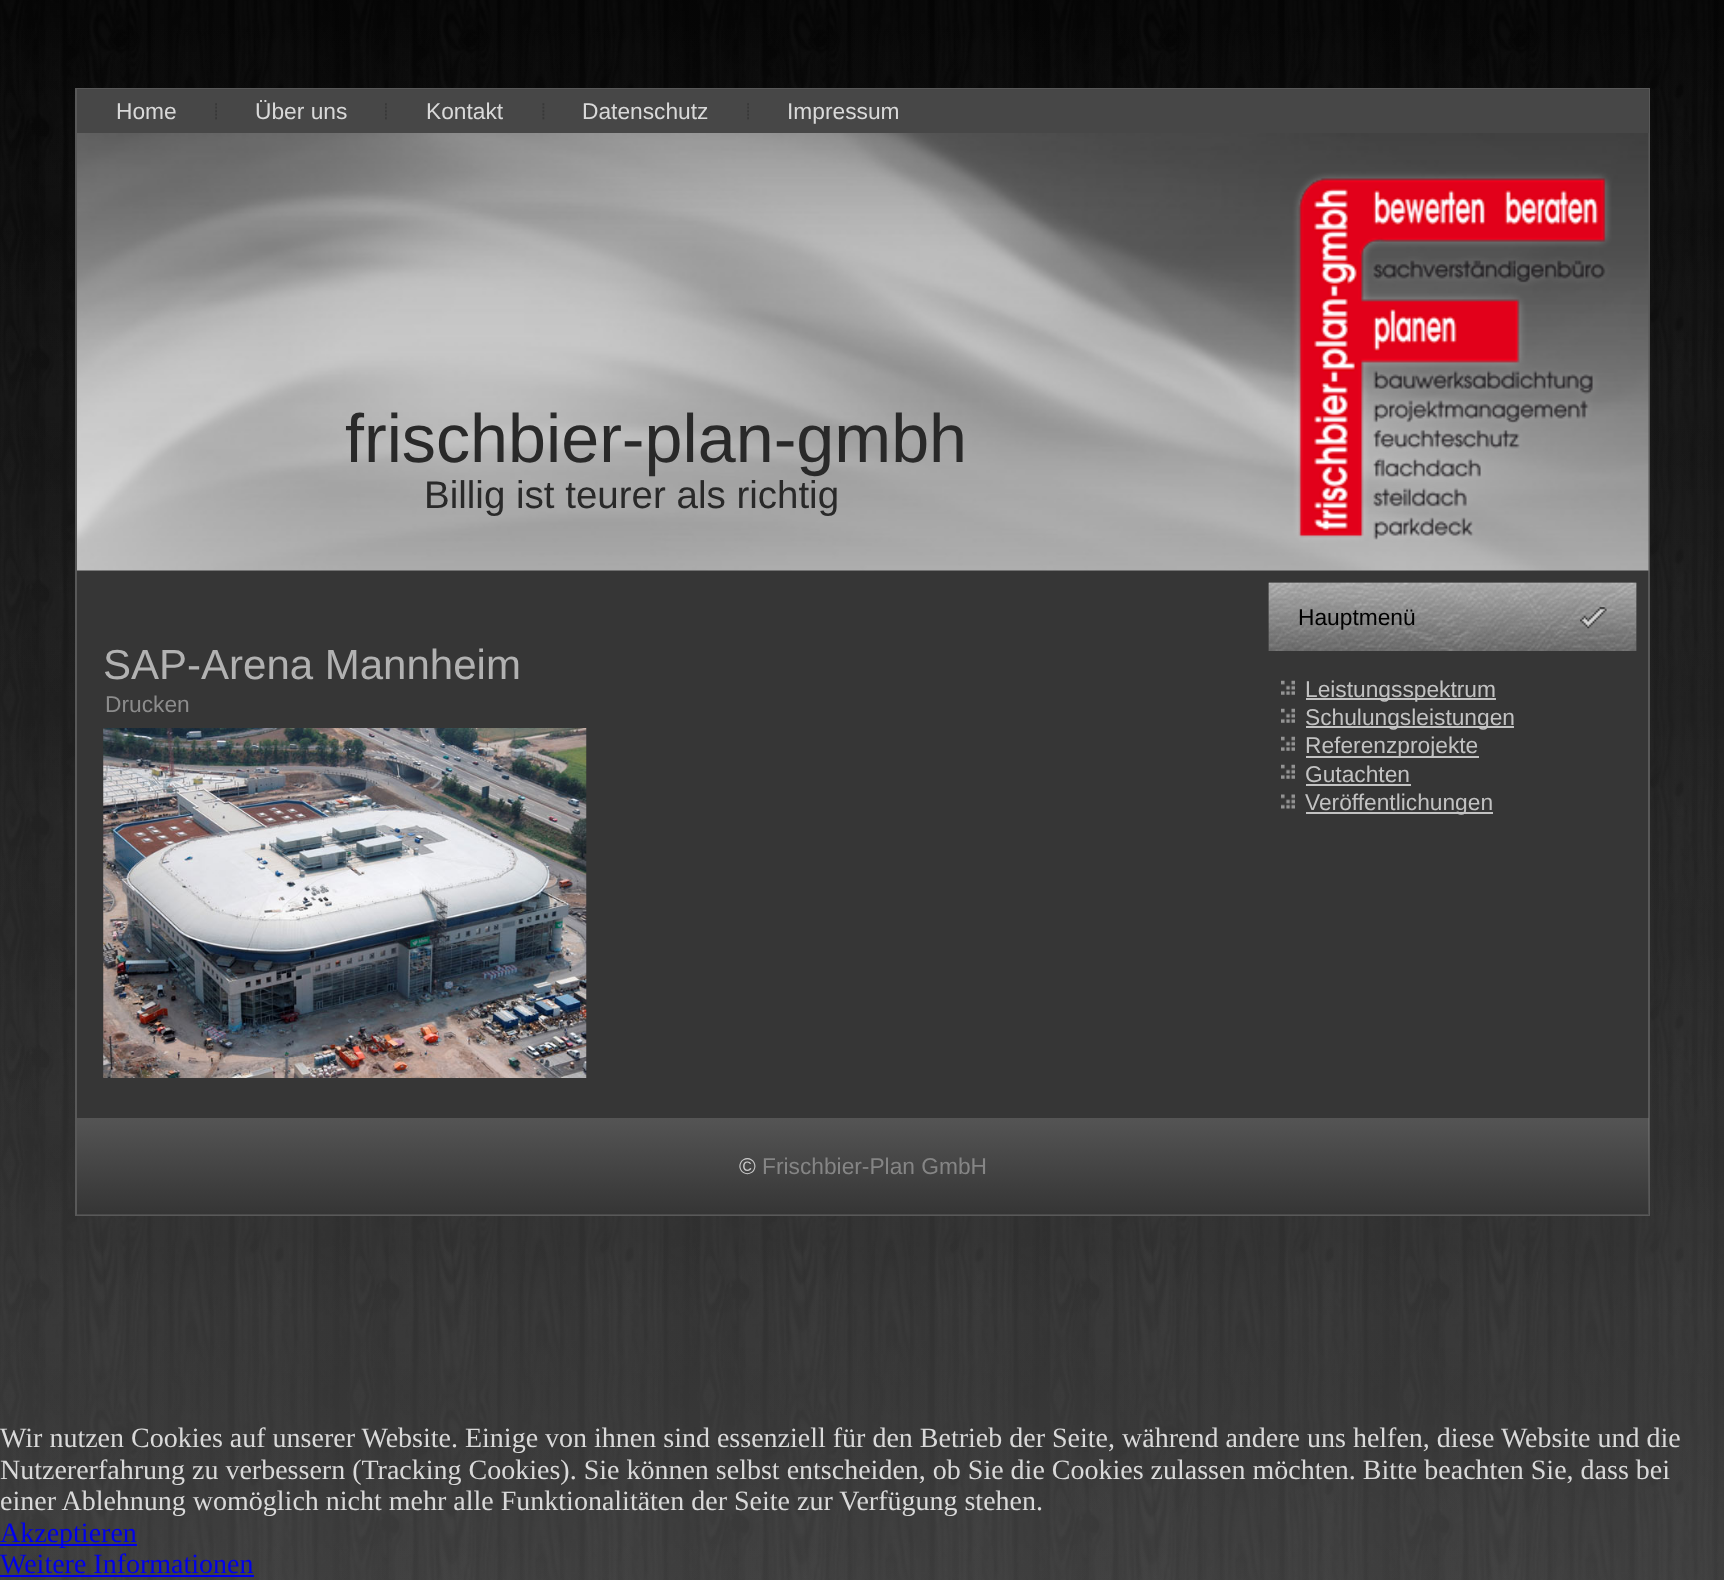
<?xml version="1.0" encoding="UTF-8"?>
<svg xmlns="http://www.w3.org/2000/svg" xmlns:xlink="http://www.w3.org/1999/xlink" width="1724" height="1580">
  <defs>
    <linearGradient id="g1" gradientUnits="userSpaceOnUse" x1="863" y1="1118" x2="863" y2="1215"><stop offset="0" stop-color="#828282" stop-opacity="0.4" /><stop offset="0.03" stop-color="#808080" stop-opacity="0.4" /><stop offset="1" stop-color="#333333" stop-opacity="0.4" /></linearGradient>
  </defs>
  <rect width="100%" height="100%" fill="#ffffff" />
  <image x="0" y="0" width="1724" height="1580" xlink:href="image1.png" />
  <rect x="77" y="570" width="1571" height="644" fill="#363636" />
  <rect x="76" y="89" width="1573" height="1126" fill="none" stroke="#595959" stroke-width="2" />
  <rect x="77" y="89" width="1572" height="44" fill="#474747" />
  <image x="215" y="103" width="2" height="17" xlink:href="image2.png" />
  <image x="385" y="103" width="2" height="17" xlink:href="image3.png" />
  <image x="542" y="103" width="3" height="17" xlink:href="image4.png" />
  <image x="747" y="103" width="2" height="17" xlink:href="image2.png" />
  <image x="77" y="133" width="1572" height="438" xlink:href="image5.png" />
  <image x="103" y="728" width="484" height="350" xlink:href="image6.png" />
  <image x="1268" y="582" width="369" height="69" xlink:href="image7.png" />
  <image x="1580" y="607" width="27" height="22" xlink:href="image8.png" />
  <image x="1281" y="680" width="14" height="15" xlink:href="image9.png" />
  <rect x="1306" y="698" width="190" height="2" fill="#c2c2c2" />
  <image x="1281" y="708" width="14" height="15" xlink:href="image9.png" />
  <rect x="1306" y="726" width="208" height="2" fill="#c2c2c2" />
  <image x="1281" y="736" width="14" height="15" xlink:href="image9.png" />
  <rect x="1306" y="756" width="173" height="2" fill="#c2c2c2" />
  <image x="1281" y="764" width="14" height="15" xlink:href="image9.png" />
  <rect x="1306" y="784" width="105" height="2" fill="#c2c2c2" />
  <image x="1281" y="794" width="14" height="15" xlink:href="image10.png" />
  <rect x="1306" y="812" width="187" height="2" fill="#c2c2c2" />
  <rect x="77" y="1118" width="1572" height="97" fill="url(#g1)" />
  <rect y="1544" width="137" height="2" fill="#0000ee" />
  <rect y="1575" width="254" height="2" fill="#0000ee" />
  <text x="116" y="119" style="font-family: Liberation Sans; font-size: 22.75px; fill: #d9d9d9">Home</text>
  <text x="255" y="119" style="font-family: Liberation Sans; font-size: 22.75px; fill: #d9d9d9">Über uns</text>
  <text x="426" y="119" style="font-family: Liberation Sans; font-size: 22.75px; fill: #d9d9d9">Kontakt</text>
  <text x="582" y="119" style="font-family: Liberation Sans; font-size: 22.75px; fill: #d9d9d9">Datenschutz</text>
  <text x="787" y="119" style="font-family: Liberation Sans; font-size: 22.75px; fill: #d9d9d9">Impressum</text>
  <text x="345" y="462" style="font-family: Liberation Sans; font-size: 68.25px; fill: #292929">frischbier-plan-gmbh</text>
  <text x="424" y="508" style="font-family: Liberation Sans; font-size: 38.5px; fill: #292929">Billig ist teurer als richtig</text>
  <text x="103" y="679" style="font-family: Liberation Sans; font-size: 42px; fill: #b2b2b2">SAP-Arena Mannheim</text>
  <text x="105" y="712" style="font-family: Liberation Sans; font-size: 22.75px; fill: #8c8c8c">Drucken</text>
  <text x="1298" y="625" style="font-family: Liberation Sans; font-size: 22.75px; fill: #000000">Hauptmenü</text>
  <text x="1305" y="697" style="font-family: Liberation Sans; font-size: 22.75px; fill: #c2c2c2">Leistungsspektrum</text>
  <text x="1305" y="725" style="font-family: Liberation Sans; font-size: 22.75px; fill: #c2c2c2">Schulungsleistungen</text>
  <text x="1305" y="753" style="font-family: Liberation Sans; font-size: 22.75px; fill: #c2c2c2">Referenzprojekte</text>
  <text x="1305" y="782" style="font-family: Liberation Sans; font-size: 22.75px; fill: #c2c2c2">Gutachten</text>
  <text x="1305" y="810" style="font-family: Liberation Sans; font-size: 22.75px; fill: #c2c2c2">Veröffentlichungen</text>
  <text x="739" y="1174" style="font-family: Liberation Sans; font-size: 22.75px; fill: #cccccc">©</text>
  <text x="762" y="1174" style="font-family: Liberation Sans; font-size: 22.75px; fill: #858585">Frischbier-Plan GmbH</text>
  <text x="0" y="1447" style="font-family: Liberation Serif; font-size: 28px; fill: #d9d9d9">Wir nutzen Cookies auf unserer Website. Einige von ihnen sind essenziell für den Betrieb der Seite, während andere uns helfen, diese Website und die</text>
  <text x="0" y="1479" style="font-family: Liberation Serif; font-size: 28px; fill: #d9d9d9">Nutzererfahrung zu verbessern (Tracking Cookies). Sie können selbst entscheiden, ob Sie die Cookies zulassen möchten. Bitte beachten Sie, dass bei</text>
  <text x="0" y="1510" style="font-family: Liberation Serif; font-size: 28px; fill: #d9d9d9">einer Ablehnung womöglich nicht mehr alle Funktionalitäten der Seite zur Verfügung stehen.</text>
  <text x="0" y="1542" style="font-family: Liberation Serif; font-size: 28px; fill: #0000ee">Akzeptieren</text>
  <text x="0" y="1573" style="font-family: Liberation Serif; font-size: 28px; fill: #0000ee">Weitere Informationen</text>
</svg>
